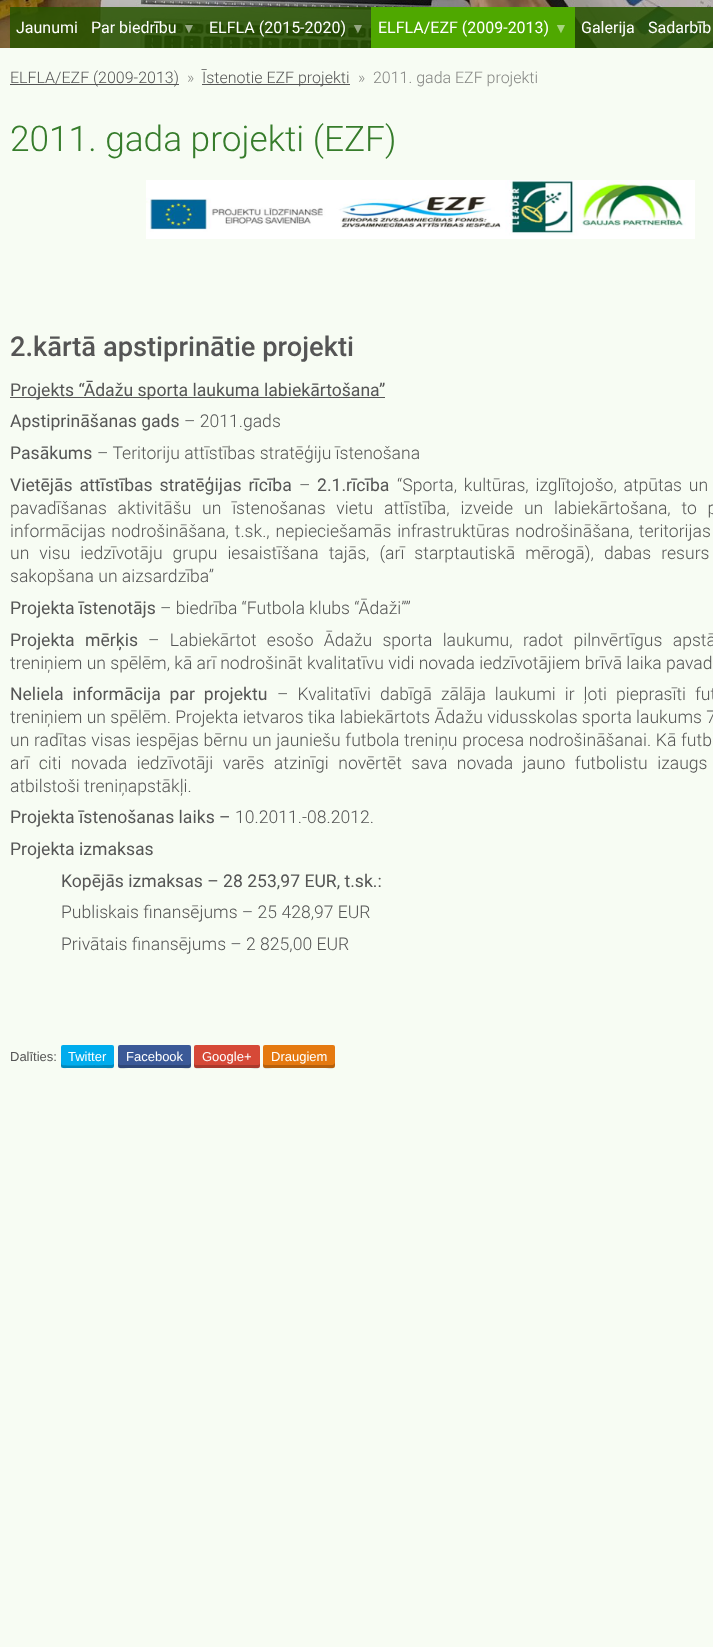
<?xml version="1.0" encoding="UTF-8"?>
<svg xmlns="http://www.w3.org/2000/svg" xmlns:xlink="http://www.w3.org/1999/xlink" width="713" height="1647">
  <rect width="100%" height="100%" fill="#f7fcf3" />
  <image x="0" y="0" width="713" height="48" xlink:href="image1.png" />
  <image x="48" y="0" width="342" height="18" xlink:href="image2.png" />
  <rect x="10" y="7" width="703" height="41" fill="#285400" fill-opacity="0.85" />
  <rect x="371" y="7" width="204" height="41" fill="#4fa800" />
  <rect x="10" y="84" width="169" height="1" fill="#555555" />
  <rect x="202" y="84" width="148" height="1" fill="#555555" />
  <image x="146" y="180" width="549" height="59" xlink:href="image3.png" />
  <rect x="10" y="397" width="375" height="1" fill="#555555" />
  <rect x="61" y="1045" width="53" height="23" rx="2" fill="#00aced" />
  <path d="M 61 1060 c 0 10 -1 8 10 8 h 33 c 7 0 10 2 10 -4 c -1 1 -3 1 -4 1 c -3 0 -47 1 -48 0 c -1 -1 -1 -4 -1 -5 z" fill="#000000" fill-opacity="0.2" />
  <rect x="118" y="1045" width="73" height="23" rx="2" fill="#3b5997" />
  <path d="M 118 1063 c 0 8 3 5 14 5 h 46 c 10 0 13 3 13 -5 l -1 1 l -1 1 h -69 c -1 0 -2 -1 -2 -2 z" fill="#000000" fill-opacity="0.2" />
  <rect x="194" y="1045" width="66" height="23" rx="2" fill="#d64937" />
  <path d="M 194 1063 c 0 8 3 5 12 5 h 42 c 9 0 12 3 12 -5 c 0 1 -1 2 -2 2 h -63 z" fill="#000000" fill-opacity="0.2" />
  <rect x="263" y="1045" width="72" height="23" rx="2" fill="#e57910" />
  <path d="M 263 1063 c 0 8 3 5 13 5 h 46 c 10 0 13 3 13 -5 l -1 1 l -1 1 h -68 c -1 0 -2 -1 -2 -2 z" fill="#000000" fill-opacity="0.2" />
  <text x="16" y="33" style="font-family: Roboto; font-size: 16px; fill: #ffffff">Jaunumi</text>
  <text x="91" y="33" style="font-family: Roboto; font-size: 16px; fill: #ffffff">Par biedrību</text>
  <text x="182" y="33" style="font-family: Liberation Sans; font-size: 14px; fill: #94a682">▼</text>
  <text x="209" y="33" style="font-family: Roboto; font-size: 16px; fill: #ffffff">ELFLA (2015-2020)</text>
  <text x="351" y="33" style="font-family: Liberation Sans; font-size: 14px; fill: #94a682">▼</text>
  <text x="378" y="33" style="font-family: Roboto; font-size: 16px; fill: #ffffff">ELFLA/EZF (2009-2013)</text>
  <text x="554" y="33" style="font-family: Liberation Sans; font-size: 14px; fill: #a7d480">▼</text>
  <text x="581" y="33" style="font-family: Roboto; font-size: 16px; fill: #ffffff">Galerija</text>
  <text x="648" y="33" style="font-family: Roboto; font-size: 16px; fill: #ffffff">Sadarbīb</text>
  <text x="10" y="83" style="font-family: Roboto; font-size: 16px; font-weight: 300; fill: #555555">ELFLA/EZF (2009-2013)</text>
  <text x="187" y="83" style="font-family: Roboto; font-size: 16px; font-weight: 300; fill: #868784">»</text>
  <text x="202" y="83" style="font-family: Roboto; font-size: 16px; font-weight: 300; fill: #555555">Īstenotie EZF projekti</text>
  <text x="358" y="83" style="font-family: Roboto; font-size: 16px; font-weight: 300; fill: #868784">»</text>
  <text x="373" y="83" style="font-family: Roboto; font-size: 16px; font-weight: 300; fill: #868784">2011. gada EZF projekti</text>
  <text x="10" y="151" style="font-family: Roboto; font-size: 35.25px; font-weight: 300; fill: #367c2b">2011. gada projekti (EZF)</text>
  <text x="10" y="356" style="font-family: Roboto; font-size: 27.25px; font-weight: 500; fill: #555555">2.kārtā apstiprinātie projekti</text>
  <text x="10" y="396" style="font-family: Roboto; font-size: 17.6px; fill: #555555">Projekts “Ādažu sporta laukuma labiekārtošana”</text>
  <text x="10" y="427" style="font-family: Roboto; font-size: 17.6px; fill: #555555">Apstiprināšanas gads</text>
  <text x="184" y="427" style="font-family: Roboto; font-size: 17.6px; font-weight: 300; fill: #555555">– 2011.gads</text>
  <text x="10" y="459" style="font-family: Roboto; font-size: 17.6px; fill: #555555">Pasākums</text>
  <text x="97" y="459" style="font-family: Roboto; font-size: 17.6px; font-weight: 300; fill: #555555">– Teritoriju attīstības stratēģiju īstenošana</text>
  <text x="10" y="491" word-spacing="2.5" style="font-family: Roboto; font-size: 17.6px; fill: #555555">Vietējās attīstības stratēģijas rīcība</text>
  <text x="299" y="491" style="font-family: Roboto; font-size: 17.6px; font-weight: 300; fill: #555555">–</text>
  <text x="317" y="491" style="font-family: Roboto; font-size: 17.6px; fill: #555555">2.1.rīcība</text>
  <text x="397" y="491" word-spacing="2.5" style="font-family: Roboto; font-size: 17.6px; font-weight: 300; fill: #555555">“Sporta, kultūras, izglītojošo, atpūtas un</text>
  <text x="10" y="514" word-spacing="6.5" style="font-family: Roboto; font-size: 17.6px; font-weight: 300; fill: #555555">pavadīšanas aktivitāšu un īstenošanas vietu attīstība, izveide un labiekārtošana, to p</text>
  <text x="10" y="537" word-spacing="1.5" style="font-family: Roboto; font-size: 17.6px; font-weight: 300; fill: #555555">informācijas nodrošināšana, t.sk., nepieciešamās infrastruktūras nodrošināšana, teritorijas</text>
  <text x="10" y="559" word-spacing="5.75" style="font-family: Roboto; font-size: 17.6px; font-weight: 300; fill: #555555">un visu iedzīvotāju grupu iesaistīšana tajās, (arī starptautiskā mērogā), dabas resurs</text>
  <text x="10" y="582" style="font-family: Roboto; font-size: 17.6px; font-weight: 300; fill: #555555">sakopšana un aizsardzība”</text>
  <text x="10" y="614" style="font-family: Roboto; font-size: 17.6px; fill: #555555">Projekta īstenotājs</text>
  <text x="160" y="614" style="font-family: Roboto; font-size: 17.6px; font-weight: 300; fill: #555555">– biedrība “Futbola klubs “Ādaži””</text>
  <text x="10" y="646" word-spacing="6" style="font-family: Roboto; font-size: 17.6px; fill: #555555">Projekta mērķis</text>
  <text x="148" y="646" word-spacing="6" style="font-family: Roboto; font-size: 17.6px; font-weight: 300; fill: #555555">– Labiekārtot esošo Ādažu sporta laukumu, radot pilnvērtīgus apstā</text>
  <text x="10" y="669" style="font-family: Roboto; font-size: 17.6px; font-weight: 300; fill: #555555">treniņiem un spēlēm, kā arī nodrošināt kvalitatīvu vidi novada iedzīvotājiem brīvā laika pavad</text>
  <text x="10" y="700" word-spacing="4.5" style="font-family: Roboto; font-size: 17.6px; fill: #555555">Neliela informācija par projektu</text>
  <text x="277" y="700" word-spacing="4.75" style="font-family: Roboto; font-size: 17.6px; font-weight: 300; fill: #555555">– Kvalitatīvi dabīgā zālāja laukumi ir ļoti pieprasīti fut</text>
  <text x="10" y="723" style="font-family: Roboto; font-size: 17.6px; font-weight: 300; fill: #555555">treniņiem un spēlēm. Projekta ietvaros tika labiekārtots Ādažu vidusskolas sporta laukums 7</text>
  <text x="10" y="746" word-spacing="0.4" style="font-family: Roboto; font-size: 17.6px; font-weight: 300; fill: #555555">un radītas visas iespējas bērnu un jauniešu futbola treniņu procesa nodrošināšanai. Kā futb</text>
  <text x="10" y="769" word-spacing="5.25" style="font-family: Roboto; font-size: 17.6px; font-weight: 300; fill: #555555">arī citi novada iedzīvotāji varēs atzinīgi novērtēt sava novada jauno futbolistu izaugs</text>
  <text x="10" y="792" style="font-family: Roboto; font-size: 17.6px; font-weight: 300; fill: #555555">atbilstoši treniņapstākļi.</text>
  <text x="10" y="823" style="font-family: Roboto; font-size: 17.6px; fill: #555555">Projekta īstenošanas laiks –</text>
  <text x="235" y="823" style="font-family: Roboto; font-size: 17.6px; font-weight: 300; fill: #555555">10.2011.-08.2012.</text>
  <text x="10" y="855" style="font-family: Roboto; font-size: 17.6px; fill: #555555">Projekta izmaksas</text>
  <text x="61" y="887" style="font-family: Roboto; font-size: 17.6px; fill: #555555">Kopējās izmaksas – 28 253,97 EUR, t.sk.:</text>
  <text x="61" y="918" style="font-family: Roboto; font-size: 17.6px; font-weight: 300; fill: #555555">Publiskais finansējums – 25 428,97 EUR</text>
  <text x="61" y="950" style="font-family: Roboto; font-size: 17.6px; font-weight: 300; fill: #555555">Privātais finansējums – 2 825,00 EUR</text>
  <text x="10" y="1061" style="font-family: Liberation Sans; font-size: 13px; fill: #555555">Dalīties:</text>
  <text x="68" y="1061" style="font-family: Liberation Sans; font-size: 13px; fill: #ffffff">Twitter</text>
  <text x="126" y="1061" style="font-family: Liberation Sans; font-size: 13px; fill: #ffffff">Facebook</text>
  <text x="202" y="1061" style="font-family: Liberation Sans; font-size: 13px; fill: #ffffff">Google+</text>
  <text x="271" y="1061" style="font-family: Liberation Sans; font-size: 13px; fill: #ffffff">Draugiem</text>
</svg>
